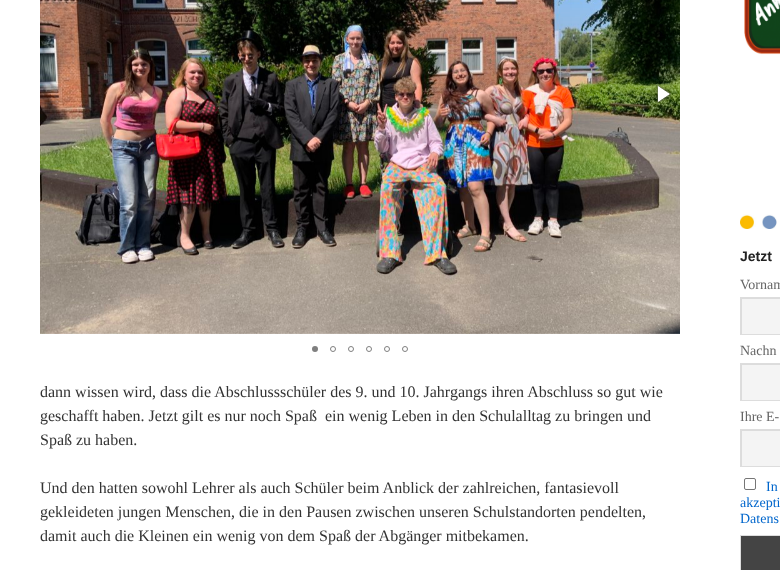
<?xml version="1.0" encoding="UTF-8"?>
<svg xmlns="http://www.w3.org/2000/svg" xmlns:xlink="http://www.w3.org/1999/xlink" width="780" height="570">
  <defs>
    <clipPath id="clip1"><rect x="741" y="298" width="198" height="36" /></clipPath>
    <clipPath id="clip2"><rect x="741" y="364" width="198" height="36" /></clipPath>
    <clipPath id="clip3"><rect x="741" y="430" width="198" height="36" /></clipPath>
  </defs>
  <rect width="100%" height="100%" fill="#ffffff" />
  <image x="40" y="0" width="640" height="334" xlink:href="image1.png" />
  <image x="50" y="85" width="13" height="18" xlink:href="image2.png" />
  <image x="654" y="84" width="18" height="21" xlink:href="image3.png" />
  <circle cx="315" cy="349" r="3" fill="#7f7f7f" />
  <circle cx="333" cy="349" r="2.5" fill="none" stroke="#7f7f7f" />
  <circle cx="351" cy="349" r="2.5" fill="none" stroke="#7f7f7f" />
  <circle cx="369" cy="349" r="2.5" fill="none" stroke="#7f7f7f" />
  <circle cx="387" cy="349" r="2.5" fill="none" stroke="#7f7f7f" />
  <circle cx="405" cy="349" r="2.5" fill="none" stroke="#7f7f7f" />
  <image x="744" y="0" width="36" height="55" xlink:href="image4.png" />
  <image x="740" y="214" width="37" height="15" xlink:href="image5.png" />
  <rect x="742" y="299" width="38" height="35" fill="#f4f4f4" />
  <g clip-path="url(#clip1)">
    <path d="M 642 199 h 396 v 234 h -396 z m 100 100 h 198 v 36 h -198 z" fill="#dcdcdc" fill-rule="evenodd" />
  </g>
  <rect x="740.5" y="297.5" width="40" height="37" fill="none" stroke="#dddddd" />
  <rect x="742" y="365" width="38" height="35" fill="#f4f4f4" />
  <g clip-path="url(#clip2)">
    <path d="M 642 265 h 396 v 234 h -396 z m 100 100 h 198 v 36 h -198 z" fill="#dcdcdc" fill-rule="evenodd" />
  </g>
  <rect x="740.5" y="363.5" width="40" height="37" fill="none" stroke="#dddddd" />
  <rect x="742" y="431" width="38" height="35" fill="#f4f4f4" />
  <g clip-path="url(#clip3)">
    <path d="M 642 331 h 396 v 234 h -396 z m 100 100 h 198 v 36 h -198 z" fill="#dcdcdc" fill-rule="evenodd" />
  </g>
  <rect x="740.5" y="429.5" width="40" height="37" fill="none" stroke="#dddddd" />
  <rect x="744.5" y="478.5" width="11" height="11" rx="1.5" fill="none" stroke="#767676" />
  <rect x="740.5" y="535.5" width="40" height="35" fill="#444444" stroke="#dddddd" />
  <text x="40" y="397" style="font-family: Liberation Serif; font-size: 16px; fill: #333333">dann wissen wird, dass die Abschlussschüler des 9. und 10. Jahrgangs ihren Abschluss so gut wie</text>
  <text x="40" y="421" style="font-family: Liberation Serif; font-size: 16px; fill: #333333" xml:space="preserve">geschafft haben. Jetzt gilt es nur noch Spaß  ein wenig Leben in den Schulalltag zu bringen und</text>
  <text x="40" y="445" style="font-family: Liberation Serif; font-size: 16px; fill: #333333">Spaß zu haben.</text>
  <text x="40" y="493" style="font-family: Liberation Serif; font-size: 16px; fill: #333333">Und den hatten sowohl Lehrer als auch Schüler beim Anblick der zahlreichen, fantasievoll</text>
  <text x="40" y="517" style="font-family: Liberation Serif; font-size: 16px; fill: #333333">gekleideten jungen Menschen, die in den Pausen zwischen unseren Schulstandorten pendelten,</text>
  <text x="40" y="541" style="font-family: Liberation Serif; font-size: 16px; fill: #333333">damit auch die Kleinen ein wenig von dem Spaß der Abgänger mitbekamen.</text>
  <text x="740" y="261" style="font-family: Liberation Sans; font-size: 14px; font-weight: bold; fill: #222222">Jetzt</text>
  <text x="740" y="289" style="font-family: Liberation Serif; font-size: 14px; fill: #666666">Vornam</text>
  <text x="740" y="355" style="font-family: Liberation Serif; font-size: 14px; fill: #666666">Nachn</text>
  <text x="740" y="421" style="font-family: Liberation Serif; font-size: 14px; fill: #666666">Ihre E-</text>
  <text x="766" y="491" style="font-family: Liberation Serif; font-size: 14px; fill: #0066cc">In</text>
  <text x="740" y="507" style="font-family: Liberation Serif; font-size: 14px; fill: #0066cc">akzepti</text>
  <text x="740" y="523" style="font-family: Liberation Serif; font-size: 14px; fill: #0066cc">Datens</text>
</svg>
